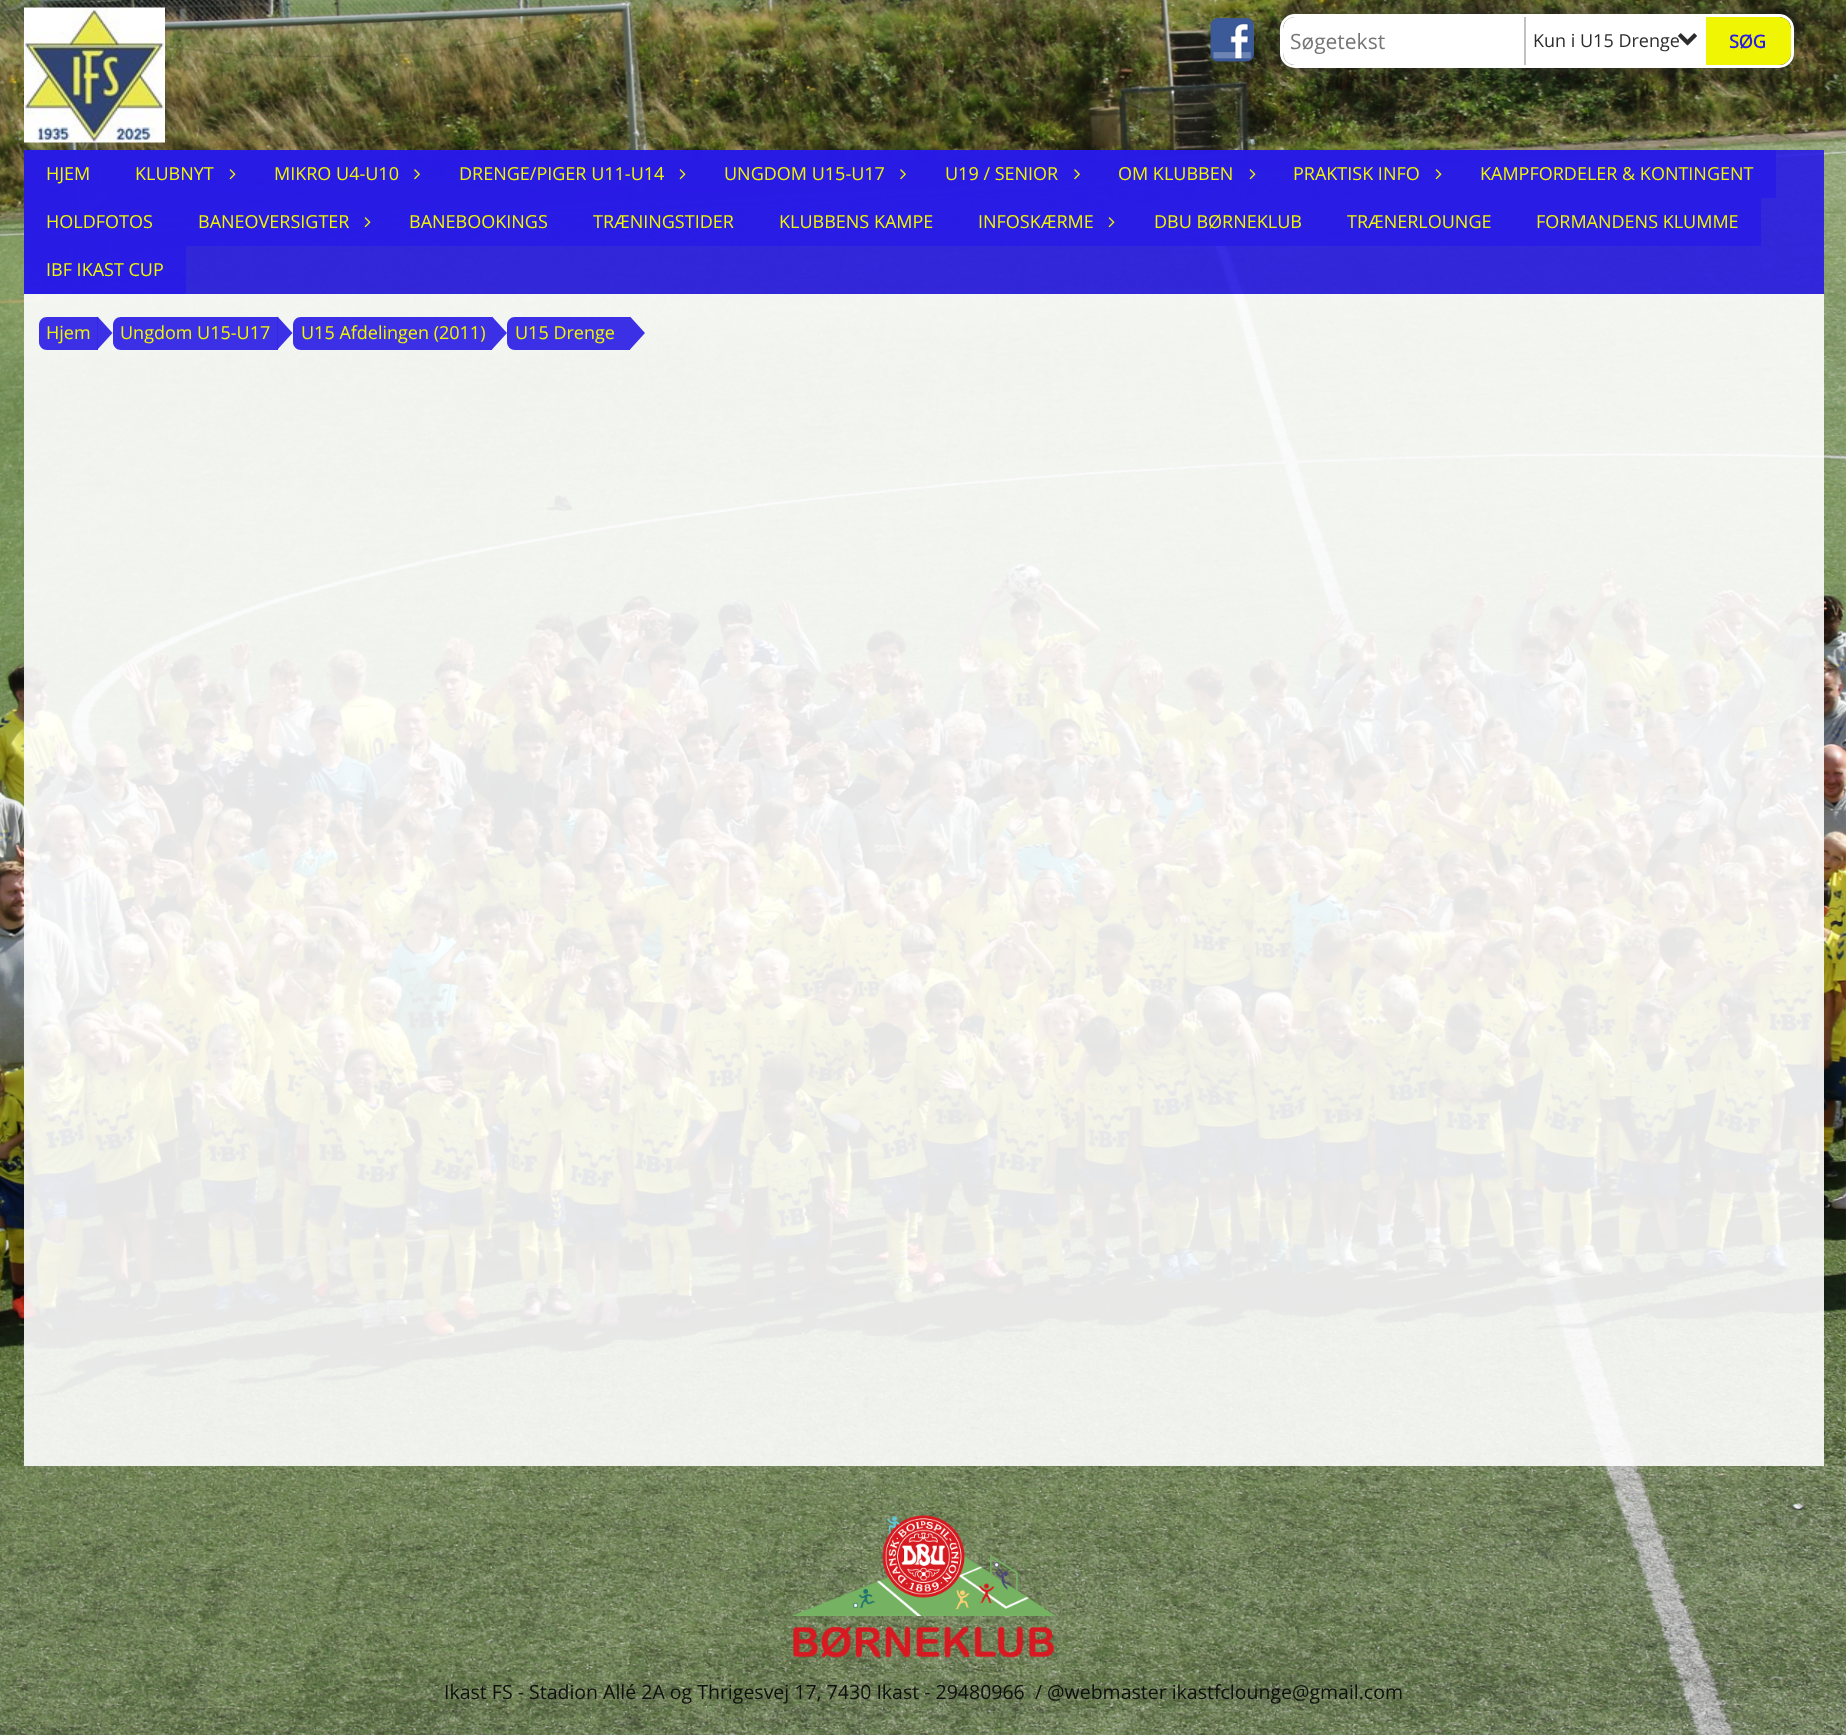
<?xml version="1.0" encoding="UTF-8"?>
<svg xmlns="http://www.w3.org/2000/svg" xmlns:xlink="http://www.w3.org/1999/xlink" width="1846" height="1735">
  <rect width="100%" height="100%" fill="#ffffff" />
  <image x="0" y="0" width="1846" height="1735" xlink:href="image1.png" />
  <image x="24" y="7" width="141" height="136" xlink:href="image2.png" />
  <image x="1210" y="18" width="44" height="44" xlink:href="image3.png" />
  <rect x="1280" y="14" width="514" height="54" rx="15" fill="#303030" fill-opacity="0.5" filter="blur(7.5px)" />
  <rect x="1281.5" y="15.5" width="511" height="51" rx="13.5" fill="none" stroke="#ffffff" stroke-width="3" />
  <path d="M 1295 17 h 235 v 48 h -235 c -6.5 0 -12 -5.5 -12 -12 v -24 c 0 -6.5 5.5 -12 12 -12 z" fill="#ffffff" />
  <rect x="1530" y="17" width="176" height="48" fill="#ffffff" />
  <rect x="1524" y="17" width="2" height="48" fill="#c2c2c2" />
  <path d="M 1706 17 h 73 c 6.5 0 12 5.5 12 12 v 24 c 0 6.5 -5.5 12 -12 12 h -73 z" fill="#f0f504" />
  <rect x="24" y="150" width="1800" height="144" fill="#281be5" fill-opacity="0.9" />
  <rect x="24" y="150" width="89" height="48" fill="#281be5" fill-opacity="0.9" />
  <rect x="113" y="150" width="139" height="48" fill="#281be5" fill-opacity="0.9" />
  <image x="229" y="169" width="7" height="11" xlink:href="image5.png" />
  <rect x="252" y="150" width="185" height="48" fill="#281be5" fill-opacity="0.9" />
  <image x="414" y="169" width="6" height="11" xlink:href="image6.png" />
  <rect x="437" y="150" width="265" height="48" fill="#281be5" fill-opacity="0.9" />
  <image x="679" y="169" width="7" height="11" xlink:href="image7.png" />
  <rect x="702" y="150" width="221" height="48" fill="#281be5" fill-opacity="0.9" />
  <image x="900" y="169" width="6" height="11" xlink:href="image8.png" />
  <rect x="923" y="150" width="172" height="48" fill="#281be5" fill-opacity="0.9" />
  <image x="1074" y="169" width="6" height="11" xlink:href="image9.png" />
  <rect x="1095" y="150" width="176" height="48" fill="#281be5" fill-opacity="0.9" />
  <image x="1249" y="169" width="7" height="11" xlink:href="image10.png" />
  <rect x="1271" y="150" width="187" height="48" fill="#281be5" fill-opacity="0.9" />
  <image x="1435" y="169" width="7" height="11" xlink:href="image11.png" />
  <rect x="1458" y="150" width="318" height="48" fill="#281be5" fill-opacity="0.9" />
  <rect x="24" y="198" width="152" height="48" fill="#281be5" fill-opacity="0.9" />
  <rect x="176" y="198" width="211" height="48" fill="#281be5" fill-opacity="0.9" />
  <image x="364" y="217" width="7" height="11" xlink:href="image12.png" />
  <rect x="387" y="198" width="183" height="48" fill="#281be5" fill-opacity="0.9" />
  <rect x="570" y="198" width="186" height="48" fill="#281be5" fill-opacity="0.9" />
  <rect x="756" y="198" width="200" height="48" fill="#281be5" fill-opacity="0.9" />
  <rect x="956" y="198" width="175" height="48" fill="#281be5" fill-opacity="0.9" />
  <image x="1108" y="217" width="7" height="11" xlink:href="image13.png" />
  <rect x="1131" y="198" width="194" height="48" fill="#281be5" fill-opacity="0.9" />
  <rect x="1325" y="198" width="189" height="48" fill="#281be5" fill-opacity="0.9" />
  <rect x="1514" y="198" width="247" height="48" fill="#281be5" fill-opacity="0.9" />
  <rect x="24" y="246" width="162" height="48" fill="#281be5" fill-opacity="0.9" />
  <rect x="24" y="294" width="1800" height="1172" fill="#ffffff" fill-opacity="0.9" />
  <path d="M 47 317 h 51 v 33 h -51 c -4.5 0 -8 -3.5 -8 -8 v -17 c 0 -4.5 3.5 -8 8 -8 z" fill="#281be5" fill-opacity="0.9" />
  <path d="M 97.5 349.5 v -33 l 15 16.5 z" fill="#281be5" fill-opacity="0.9" />
  <path d="M 121 317 h 157 v 33 h -157 c -4.5 0 -8 -3.5 -8 -8 v -17 c 0 -4.5 3.5 -8 8 -8 z" fill="#281be5" fill-opacity="0.9" />
  <path d="M 277.5 349.5 v -33 l 15 16.5 z" fill="#281be5" fill-opacity="0.9" />
  <path d="M 301 317 h 191 v 33 h -191 c -4.5 0 -8 -3.5 -8 -8 v -17 c 0 -4.5 3.5 -8 8 -8 z" fill="#281be5" fill-opacity="0.9" />
  <path d="M 492 349.5 v -33 l 15 16.5 z" fill="#281be5" fill-opacity="0.9" />
  <path d="M 515 317 h 115 v 33 h -115 c -4.5 0 -8 -3.5 -8 -8 v -17 c 0 -4.5 3.5 -8 8 -8 z" fill="#281be5" fill-opacity="0.9" />
  <path d="M 630 349.5 v -33 l 15 16.5 z" fill="#281be5" fill-opacity="0.9" />
  <rect y="1466" width="1846" height="269" fill="#ffffff" fill-opacity="0.1" />
  <image x="792" y="1515" width="264" height="143" xlink:href="image14.png" />
  <text x="1290" y="49" style="font-family: Open Sans; font-size: 21px; fill: #757575">Søgetekst</text>
  <text x="1533" y="47" style="font-family: Open Sans; font-size: 18px; fill: #2c2c2c">Kun i U15 Drenge</text>
  <image x="1678" y="33" width="19" height="13" xlink:href="image4.png" />
  <text x="1729" y="48" style="font-family: Open Sans; font-size: 18px; font-weight: bold; fill: #281be5">SØG</text>
  <text x="46" y="180" style="font-family: Open Sans; font-size: 18px; fill: #f0f504">HJEM</text>
  <text x="135" y="180" style="font-family: Open Sans; font-size: 18px; fill: #f0f504">KLUBNYT</text>
  <text x="274" y="180" style="font-family: Open Sans; font-size: 18px; fill: #f0f504">MIKRO U4-U10</text>
  <text x="459" y="180" style="font-family: Open Sans; font-size: 18px; fill: #f0f504">DRENGE/PIGER U11-U14</text>
  <text x="724" y="180" style="font-family: Open Sans; font-size: 18px; fill: #f0f504">UNGDOM U15-U17</text>
  <text x="945" y="180" style="font-family: Open Sans; font-size: 18px; fill: #f0f504">U19 / SENIOR</text>
  <text x="1118" y="180" style="font-family: Open Sans; font-size: 18px; fill: #f0f504">OM KLUBBEN</text>
  <text x="1293" y="180" style="font-family: Open Sans; font-size: 18px; fill: #f0f504">PRAKTISK INFO</text>
  <text x="1480" y="180" style="font-family: Open Sans; font-size: 18px; fill: #f0f504">KAMPFORDELER &amp; KONTINGENT</text>
  <text x="46" y="228" style="font-family: Open Sans; font-size: 18px; fill: #f0f504">HOLDFOTOS</text>
  <text x="198" y="228" style="font-family: Open Sans; font-size: 18px; fill: #f0f504">BANEOVERSIGTER</text>
  <text x="409" y="228" style="font-family: Open Sans; font-size: 18px; fill: #f0f504">BANEBOOKINGS</text>
  <text x="593" y="228" style="font-family: Open Sans; font-size: 18px; fill: #f0f504">TRÆNINGSTIDER</text>
  <text x="779" y="228" style="font-family: Open Sans; font-size: 18px; fill: #f0f504">KLUBBENS KAMPE</text>
  <text x="978" y="228" style="font-family: Open Sans; font-size: 18px; fill: #f0f504">INFOSKÆRME</text>
  <text x="1154" y="228" style="font-family: Open Sans; font-size: 18px; fill: #f0f504">DBU BØRNEKLUB</text>
  <text x="1347" y="228" style="font-family: Open Sans; font-size: 18px; fill: #f0f504">TRÆNERLOUNGE</text>
  <text x="1536" y="228" style="font-family: Open Sans; font-size: 18px; fill: #f0f504">FORMANDENS KLUMME</text>
  <text x="46" y="276" style="font-family: Open Sans; font-size: 18px; fill: #f0f504">IBF IKAST CUP</text>
  <text x="46" y="339" style="font-family: Open Sans; font-size: 18px; fill: #f0f504">Hjem</text>
  <text x="120" y="339" style="font-family: Open Sans; font-size: 18px; fill: #f0f504">Ungdom U15-U17</text>
  <text x="301" y="339" style="font-family: Open Sans; font-size: 18px; fill: #f0f504">U15 Afdelingen (2011)</text>
  <text x="515" y="339" style="font-family: Open Sans; font-size: 18px; fill: #f0f504">U15 Drenge</text>
  <text x="444" y="1699" style="font-family: Open Sans; font-size: 19.5px; fill: #0e0e0f" xml:space="preserve">Ikast FS - Stadion Allé 2A og Thrigesvej 17, 7430 Ikast - 29480966  / @webmaster ikastfclounge@gmail.com</text>
</svg>
